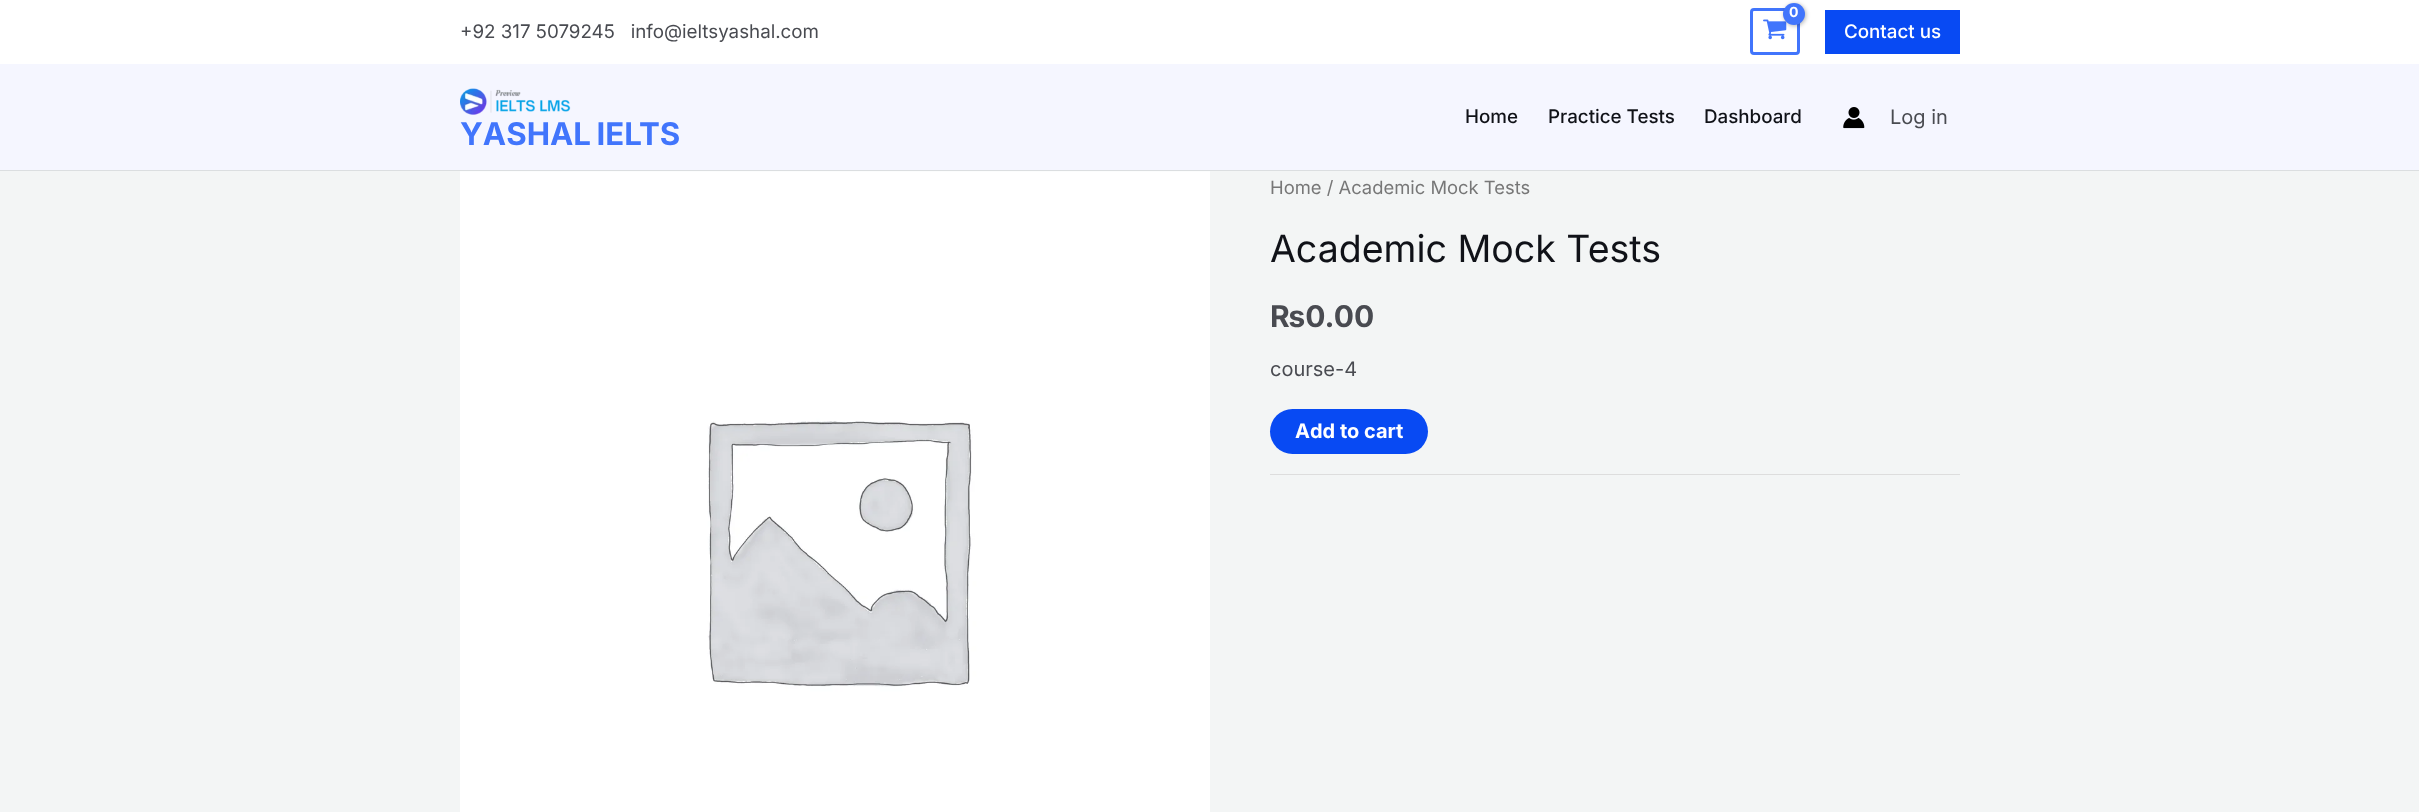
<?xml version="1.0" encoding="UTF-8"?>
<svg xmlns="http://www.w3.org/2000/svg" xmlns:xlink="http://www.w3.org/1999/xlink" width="2419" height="812">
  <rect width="100%" height="100%" fill="#f3f5f5" />
  <rect width="2419" height="64" fill="#ffffff" />
  <rect x="1751.5" y="9.5" width="47" height="44" rx="2.5" fill="none" stroke="#4175fc" stroke-width="3" />
  <image x="1763" y="19" width="24" height="21" xlink:href="image1.png" />
  <rect x="1784" y="4" width="22" height="22" rx="11" fill="#000000" fill-opacity="0.3" filter="blur(2px)" />
  <circle cx="1794" cy="14" r="11" fill="#4175fc" />
  <rect x="1825" y="10" width="135" height="44" fill="#084af3" />
  <rect y="64" width="2419" height="106" fill="#f5f6ff" />
  <rect y="170" width="2419" height="1" fill="#dbdee0" />
  <image x="1843" y="107" width="22" height="22" xlink:href="image2.png" />
  <image x="460" y="88" width="111" height="27" xlink:href="image3.png" />
  <image x="460" y="171" width="750" height="641" xlink:href="image4.png" />
  <rect x="1270" y="409" width="158" height="45" rx="22.5" fill="#084af3" />
  <rect x="1270" y="474" width="690" height="1" fill="#dddddd" />
  <text x="460" y="38" style="font-family: Inter; font-size: 18.75px; fill: #494b51" xml:space="preserve">+92 317 5079245   info@ieltsyashal.com</text>
  <text x="1789" y="17" style="font-family: Inter; font-size: 14px; font-weight: bold; letter-spacing: -1px; fill: #ffffff">0</text>
  <text x="1844" y="38" style="font-family: Inter; font-size: 18.75px; font-weight: 500; fill: #ffffff">Contact us</text>
  <text x="1465" y="123" style="font-family: Inter; font-size: 18.75px; font-weight: 500; fill: #101218">Home</text>
  <text x="1548" y="123" style="font-family: Inter; font-size: 18.75px; font-weight: 500; fill: #101218">Practice Tests</text>
  <text x="1704" y="123" style="font-family: Inter; font-size: 18.75px; font-weight: 500; fill: #101218">Dashboard</text>
  <text x="1890" y="124" style="font-family: Inter; font-size: 20px; fill: #494b51">Log in</text>
  <text x="460" y="145" word-spacing="-2" style="font-family: Inter; font-size: 31.25px; font-weight: bold; fill: #4175fc">YASHAL IELTS</text>
  <text x="1270" y="194" style="font-family: Inter; font-size: 18.4px; fill: #777777">Home / Academic Mock Tests</text>
  <text x="1270" y="262" style="font-family: Inter; font-size: 37.5px; fill: #101218">Academic Mock Tests</text>
  <text x="1270" y="327" style="font-family: Inter; font-size: 30px; font-weight: bold; fill: #494b51">₨0.00</text>
  <text x="1270" y="376" style="font-family: Inter; font-size: 20px; fill: #494b51">course-4</text>
  <text x="1295" y="438" style="font-family: Inter; font-size: 20px; font-weight: bold; fill: #ffffff">Add to cart</text>
</svg>
